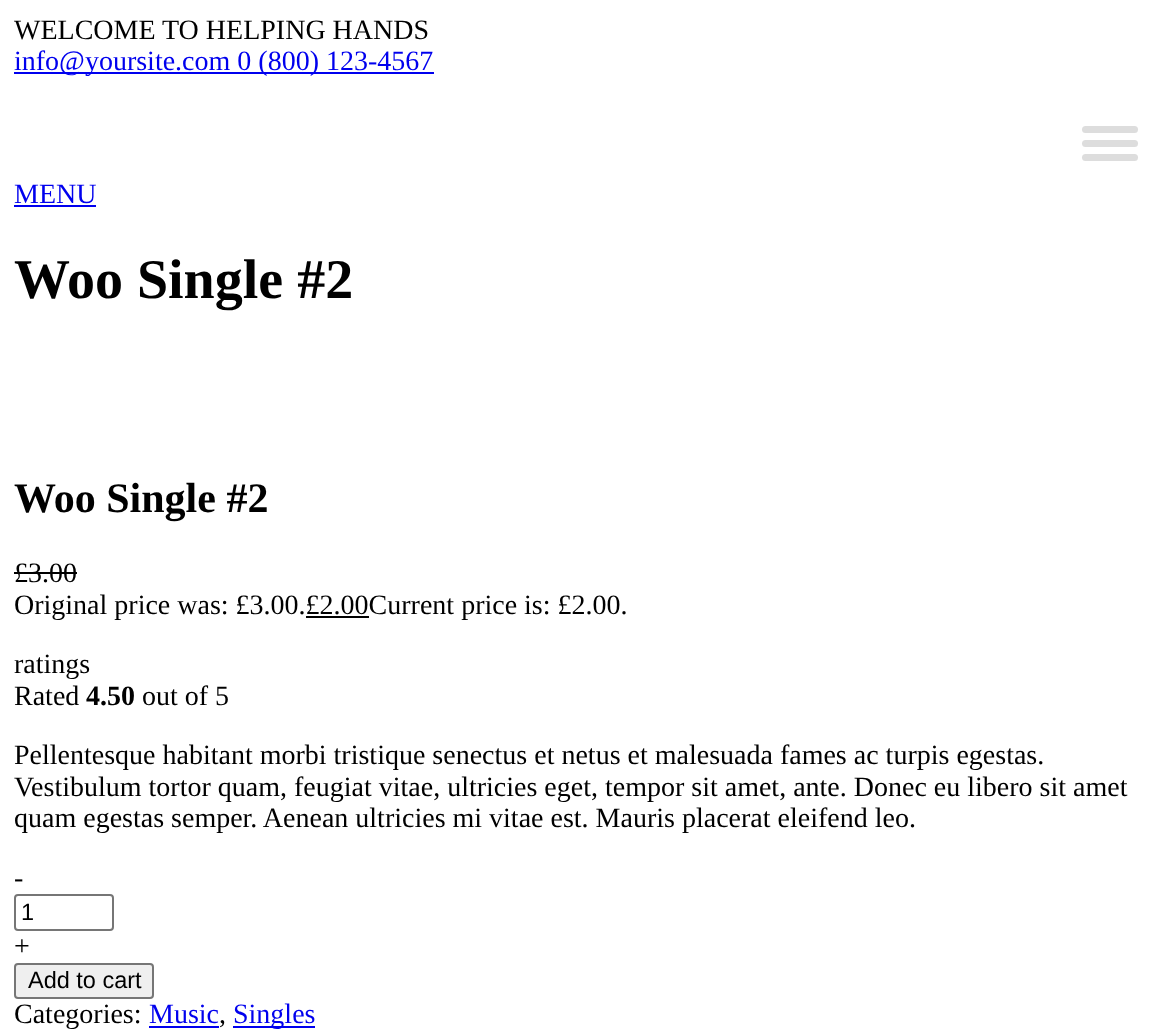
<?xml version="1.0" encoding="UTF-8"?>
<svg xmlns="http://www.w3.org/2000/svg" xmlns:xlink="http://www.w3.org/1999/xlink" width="1169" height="1033">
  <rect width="100%" height="100%" fill="#ffffff" />
  <rect x="14" y="72" width="420" height="2" fill="#0000ee" />
  <rect x="1082" y="126" width="56" height="7" rx="3.5" fill="#dddddd" />
  <rect x="1082" y="140" width="56" height="7" rx="3.5" fill="#dddddd" />
  <rect x="1082" y="154" width="56" height="7" rx="3.5" fill="#dddddd" />
  <rect x="14" y="205" width="82" height="2" fill="#0000ee" />
  <rect x="14" y="572" width="63" height="2" fill="#000000" />
  <rect x="306" y="616" width="63" height="2" fill="#000000" />
  <rect x="15" y="895" width="98" height="35" rx="3" fill="none" stroke="#767676" stroke-width="2" />
  <rect x="15" y="964" width="138" height="34" rx="3" fill="#efefef" stroke="#767676" stroke-width="2" />
  <rect x="149" y="1026" width="70" height="2" fill="#0000ee" />
  <rect x="233" y="1026" width="82" height="2" fill="#0000ee" />
  <text x="14" y="39" style="font-family: Liberation Serif; font-size: 28px; fill: #000000">WELCOME TO HELPING HANDS</text>
  <text x="14" y="70" style="font-family: Liberation Serif; font-size: 28px; fill: #0000ee">info@yoursite.com 0 (800) 123-4567</text>
  <text x="14" y="203" style="font-family: Liberation Serif; font-size: 28px; fill: #0000ee">MENU</text>
  <text x="14" y="298" style="font-family: Liberation Serif; font-size: 56px; font-weight: bold; fill: #000000">Woo Single #2</text>
  <text x="14" y="512" style="font-family: Liberation Serif; font-size: 42px; font-weight: bold; fill: #000000">Woo Single #2</text>
  <text x="14" y="582" style="font-family: Liberation Serif; font-size: 28px; fill: #000000">£3.00</text>
  <text x="14" y="614" style="font-family: Liberation Serif; font-size: 28px; fill: #000000">Original price was: £3.00.£2.00Current price is: £2.00.</text>
  <text x="14" y="673" style="font-family: Liberation Serif; font-size: 28px; fill: #000000">ratings</text>
  <text x="14" y="705" style="font-family: Liberation Serif; font-size: 28px; fill: #000000">Rated</text>
  <text x="86" y="705" style="font-family: Liberation Serif; font-size: 28px; font-weight: bold; fill: #000000">4.50</text>
  <text x="142" y="705" style="font-family: Liberation Serif; font-size: 28px; fill: #000000">out of 5</text>
  <text x="14" y="764" style="font-family: Liberation Serif; font-size: 28px; fill: #000000">Pellentesque habitant morbi tristique senectus et netus et malesuada fames ac turpis egestas.</text>
  <text x="14" y="796" style="font-family: Liberation Serif; font-size: 28px; fill: #000000">Vestibulum tortor quam, feugiat vitae, ultricies eget, tempor sit amet, ante. Donec eu libero sit amet</text>
  <text x="14" y="827" style="font-family: Liberation Serif; font-size: 28px; fill: #000000">quam egestas semper. Aenean ultricies mi vitae est. Mauris placerat eleifend leo.</text>
  <text x="14" y="887" style="font-family: Liberation Serif; font-size: 28px; fill: #000000">-</text>
  <text x="21" y="920" style="font-family: Liberation Sans; font-size: 23.5px; fill: #000000">1</text>
  <text x="14" y="955" style="font-family: Liberation Serif; font-size: 28px; fill: #000000">+</text>
  <text x="28" y="988" style="font-family: Liberation Sans; font-size: 23.5px; fill: #000000">Add to cart</text>
  <text x="14" y="1023" style="font-family: Liberation Serif; font-size: 28px; fill: #000000">Categories:</text>
  <text x="149" y="1023" style="font-family: Liberation Serif; font-size: 28px; fill: #0000ee">Music</text>
  <text x="219" y="1023" style="font-family: Liberation Serif; font-size: 28px; fill: #000000">,</text>
  <text x="233" y="1023" style="font-family: Liberation Serif; font-size: 28px; fill: #0000ee">Singles</text>
</svg>
